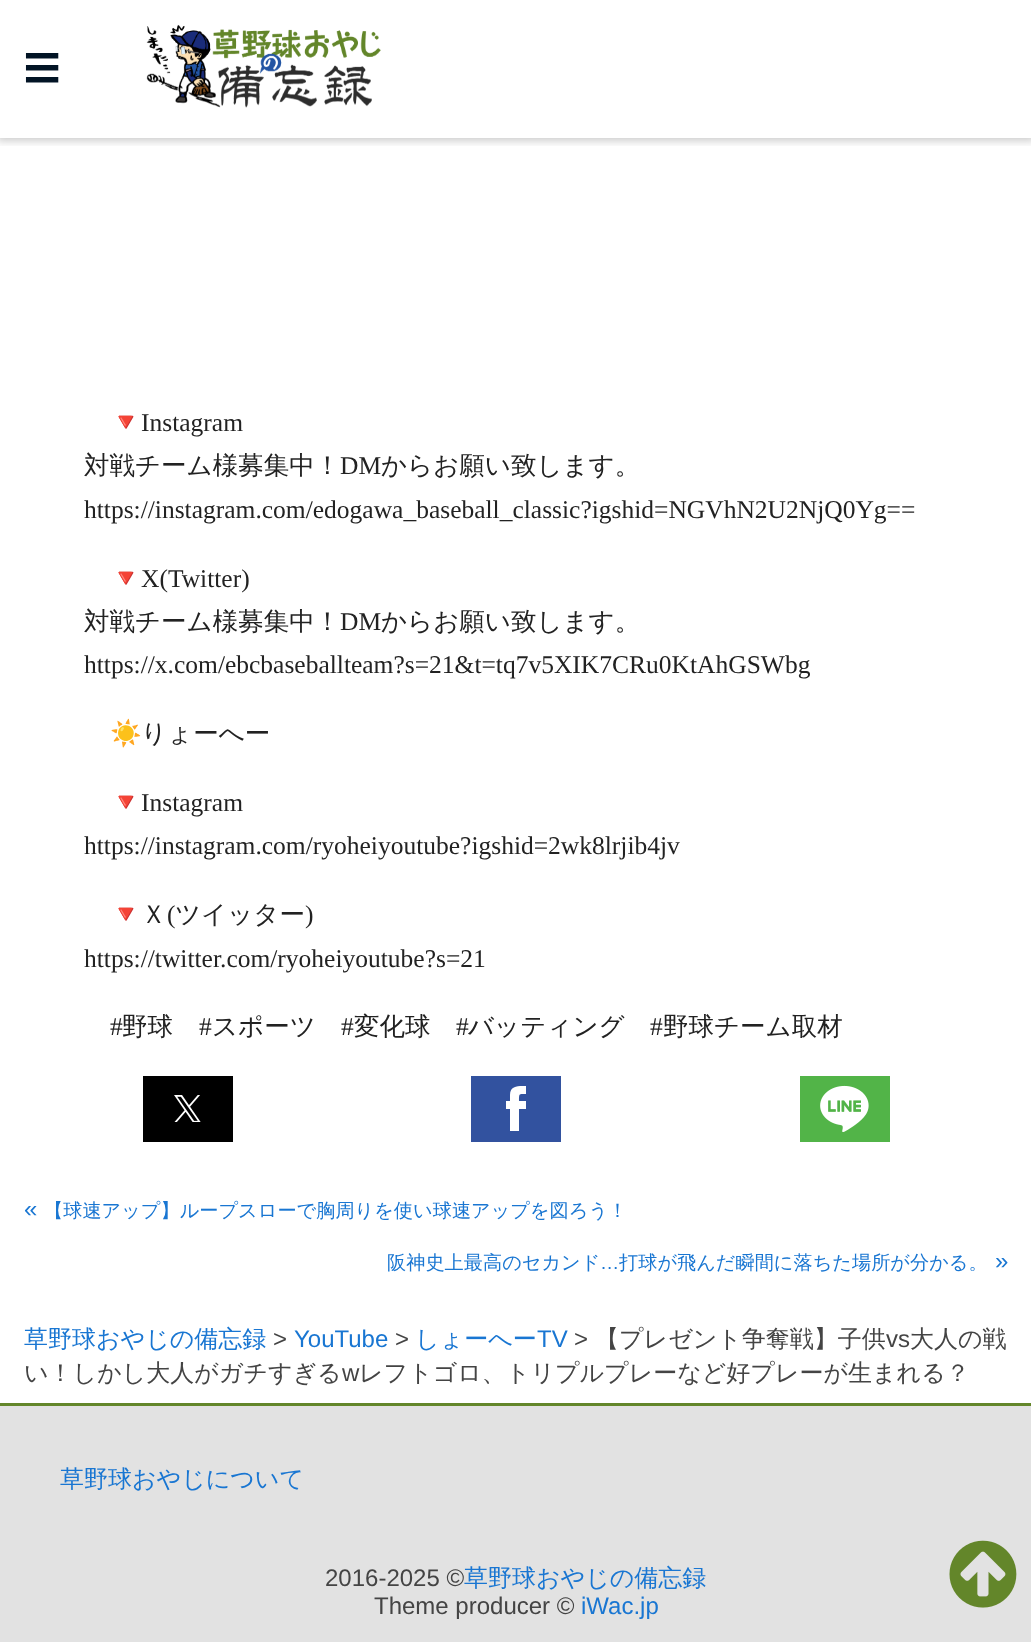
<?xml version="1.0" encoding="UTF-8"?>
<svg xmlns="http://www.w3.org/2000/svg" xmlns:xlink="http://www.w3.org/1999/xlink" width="1031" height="1642">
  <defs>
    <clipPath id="clip1"><rect x="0" y="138" width="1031" height="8" /></clipPath>
  </defs>
  <rect width="100%" height="100%" fill="#ffffff" />
  <g clip-path="url(#clip1)">
    <rect x="-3" y="-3" width="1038" height="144" fill="#000000" fill-opacity="0.2" filter="blur(4px)" />
  </g>
  <image x="146" y="24" width="235" height="84" xlink:href="image1.png" />
  <rect x="143" y="1076" width="90" height="66" fill="#000000" />
  <image x="174" y="1095" width="27" height="27" xlink:href="image2.png" />
  <rect x="471" y="1076" width="90" height="66" fill="#32529f" />
  <path d="M 510 1101 h -4 v 8 h 4 v 22 h 9 v -22 h 7 v -8 h -7 c 0 -8 0 -7 7 -7 v -8 c -7 0 -16 -1 -16 9 z" fill="#ffffff" />
  <rect x="800" y="1076" width="90" height="66" fill="#52b448" />
  <image x="820" y="1085" width="49" height="47" xlink:href="image3.png" />
  <rect y="1406" width="1031" height="236" fill="#e2e2e2" />
  <rect y="1403" width="1031" height="3" fill="#63862a" />
  <image x="949" y="1540" width="68" height="68" xlink:href="image4.png" />
  <text x="24" y="81" style="font-family: WenQuanYi Zen Hei; font-size: 36px; font-weight: 500; fill: #021425">☰</text>
  <text x="110" y="431" style="font-family: Noto Color Emoji; font-size: 25.5px; fill: #222222">🔻</text>
  <text x="141" y="431" style="font-family: Liberation Serif; font-size: 25.5px; fill: #222222">Instagram</text>
  <text x="84" y="474" style="font-family: WenQuanYi Zen Hei; font-size: 25.5px; font-weight: 500; fill: #222222">対戦チーム様募集中！</text>
  <text x="340" y="474" style="font-family: Liberation Serif; font-size: 25.5px; fill: #222222">DM</text>
  <text x="381" y="474" style="font-family: WenQuanYi Zen Hei; font-size: 25.5px; font-weight: 500; fill: #222222">からお願い致します。</text>
  <text x="84" y="518" style="font-family: Liberation Serif; font-size: 25.5px; fill: #222222">https://instagram.com/edogawa_baseball_classic?igshid=NGVhN2U2NjQ0Yg==</text>
  <text x="110" y="587" style="font-family: Noto Color Emoji; font-size: 25.5px; fill: #222222">🔻</text>
  <text x="141" y="587" style="font-family: Liberation Serif; font-size: 25.5px; fill: #222222">X(Twitter)</text>
  <text x="84" y="630" style="font-family: WenQuanYi Zen Hei; font-size: 25.5px; font-weight: 500; fill: #222222">対戦チーム様募集中！</text>
  <text x="340" y="630" style="font-family: Liberation Serif; font-size: 25.5px; fill: #222222">DM</text>
  <text x="381" y="630" style="font-family: WenQuanYi Zen Hei; font-size: 25.5px; font-weight: 500; fill: #222222">からお願い致します。</text>
  <text x="84" y="673" style="font-family: Liberation Serif; font-size: 25.5px; fill: #222222">https://x.com/ebcbaseballteam?s=21&amp;t=tq7v5XIK7CRu0KtAhGSWbg</text>
  <text x="110" y="742" style="font-family: Noto Color Emoji; font-size: 25.5px; fill: #222222">☀️</text>
  <text x="141" y="742" style="font-family: WenQuanYi Zen Hei; font-size: 25.5px; font-weight: 500; fill: #222222">りょーへー</text>
  <text x="110" y="811" style="font-family: Noto Color Emoji; font-size: 25.5px; fill: #222222">🔻</text>
  <text x="141" y="811" style="font-family: Liberation Serif; font-size: 25.5px; fill: #222222">Instagram</text>
  <text x="84" y="854" style="font-family: Liberation Serif; font-size: 25.5px; fill: #222222">https://instagram.com/ryoheiyoutube?igshid=2wk8lrjib4jv</text>
  <text x="110" y="923" style="font-family: Noto Color Emoji; font-size: 25.5px; fill: #222222">🔻</text>
  <text x="141" y="923" style="font-family: WenQuanYi Zen Hei; font-size: 25.5px; font-weight: 500; fill: #222222">Ｘ</text>
  <text x="167" y="923" style="font-family: Liberation Serif; font-size: 25.5px; fill: #222222">(</text>
  <text x="175" y="923" style="font-family: WenQuanYi Zen Hei; font-size: 25.5px; font-weight: 500; fill: #222222">ツイッター</text>
  <text x="305" y="923" style="font-family: Liberation Serif; font-size: 25.5px; fill: #222222">)</text>
  <text x="84" y="967" style="font-family: Liberation Serif; font-size: 25.5px; fill: #222222">https://twitter.com/ryoheiyoutube?s=21</text>
  <text x="110" y="1035" style="font-family: Liberation Serif; font-size: 25.5px; fill: #222222">#</text>
  <text x="122" y="1035" style="font-family: WenQuanYi Zen Hei; font-size: 25.5px; font-weight: 500; fill: #222222">野球</text>
  <text x="199" y="1035" style="font-family: Liberation Serif; font-size: 25.5px; fill: #222222">#</text>
  <text x="212" y="1035" style="font-family: WenQuanYi Zen Hei; font-size: 25.5px; font-weight: 500; fill: #222222">スポーツ</text>
  <text x="341" y="1035" style="font-family: Liberation Serif; font-size: 25.5px; fill: #222222">#</text>
  <text x="354" y="1035" style="font-family: WenQuanYi Zen Hei; font-size: 25.5px; font-weight: 500; fill: #222222">変化球</text>
  <text x="456" y="1035" style="font-family: Liberation Serif; font-size: 25.5px; fill: #222222">#</text>
  <text x="468" y="1035" style="font-family: WenQuanYi Zen Hei; font-size: 25.5px; font-weight: 500; fill: #222222">バッティング</text>
  <text x="650" y="1035" style="font-family: Liberation Serif; font-size: 25.5px; fill: #222222">#</text>
  <text x="663" y="1035" style="font-family: WenQuanYi Zen Hei; font-size: 25.5px; font-weight: 500; fill: #222222">野球チーム取材</text>
  <text x="24" y="1217" style="font-family: Liberation Sans; font-size: 24px; fill: #1976d2">«</text>
  <text x="44" y="1217" style="font-family: WenQuanYi Zen Hei; font-size: 19.2px; font-weight: 500; fill: #1976d2">【球速アップ】ループスローで胸周りを使い球速アップを図ろう！</text>
  <text x="387" y="1269" style="font-family: WenQuanYi Zen Hei; font-size: 19.2px; font-weight: 500; fill: #1976d2">阪神史上最高のセカンド</text>
  <text x="600" y="1269" style="font-family: Liberation Sans; font-size: 19.2px; fill: #1976d2">…</text>
  <text x="619" y="1269" style="font-family: WenQuanYi Zen Hei; font-size: 19.2px; font-weight: 500; fill: #1976d2">打球が飛んだ瞬間に落ちた場所が分かる。</text>
  <text x="995" y="1269" style="font-family: Liberation Sans; font-size: 24px; fill: #1976d2">»</text>
  <text x="24" y="1347" style="font-family: WenQuanYi Zen Hei; font-size: 24px; font-weight: 500; fill: #1976d2">草野球おやじの備忘録</text>
  <text x="273" y="1347" style="font-family: Liberation Sans; font-size: 24px; fill: #444444">&gt;</text>
  <text x="294" y="1347" style="font-family: Liberation Sans; font-size: 24px; fill: #1976d2">YouTube</text>
  <text x="395" y="1347" style="font-family: Liberation Sans; font-size: 24px; fill: #444444">&gt;</text>
  <text x="415" y="1347" style="font-family: WenQuanYi Zen Hei; font-size: 24px; font-weight: 500; fill: #1976d2">しょーへー</text>
  <text x="537" y="1347" style="font-family: Liberation Sans; font-size: 24px; fill: #1976d2">TV</text>
  <text x="574" y="1347" style="font-family: Liberation Sans; font-size: 24px; fill: #444444">&gt;</text>
  <text x="595" y="1347" style="font-family: WenQuanYi Zen Hei; font-size: 24px; font-weight: 500; fill: #444444">【プレゼント争奪戦】子供</text>
  <text x="886" y="1347" style="font-family: Liberation Sans; font-size: 24px; fill: #444444">vs</text>
  <text x="910" y="1347" style="font-family: WenQuanYi Zen Hei; font-size: 24px; font-weight: 500; fill: #444444">大人の戦</text>
  <text x="24" y="1381" style="font-family: WenQuanYi Zen Hei; font-size: 24px; font-weight: 500; fill: #444444">い！しかし大人がガチすぎる</text>
  <text x="342" y="1381" style="font-family: Liberation Sans; font-size: 24px; fill: #444444">w</text>
  <text x="359" y="1381" style="font-family: WenQuanYi Zen Hei; font-size: 24px; font-weight: 500; fill: #444444">レフトゴロ、トリプルプレーなど好プレーが生まれる？</text>
  <text x="60" y="1487" style="font-family: WenQuanYi Zen Hei; font-size: 24px; font-weight: 500; fill: #1976d2">草野球おやじについて</text>
  <text x="325" y="1586" style="font-family: Liberation Sans; font-size: 24px; fill: #444444">2016-2025 ©</text>
  <text x="464" y="1586" style="font-family: WenQuanYi Zen Hei; font-size: 24px; font-weight: 500; fill: #1976d2">草野球おやじの備忘録</text>
  <text x="374" y="1614" style="font-family: Liberation Sans; font-size: 24px; fill: #444444">Theme producer ©</text>
  <text x="581" y="1614" style="font-family: Liberation Sans; font-size: 24px; fill: #1976d2">iWac.jp</text>
</svg>
